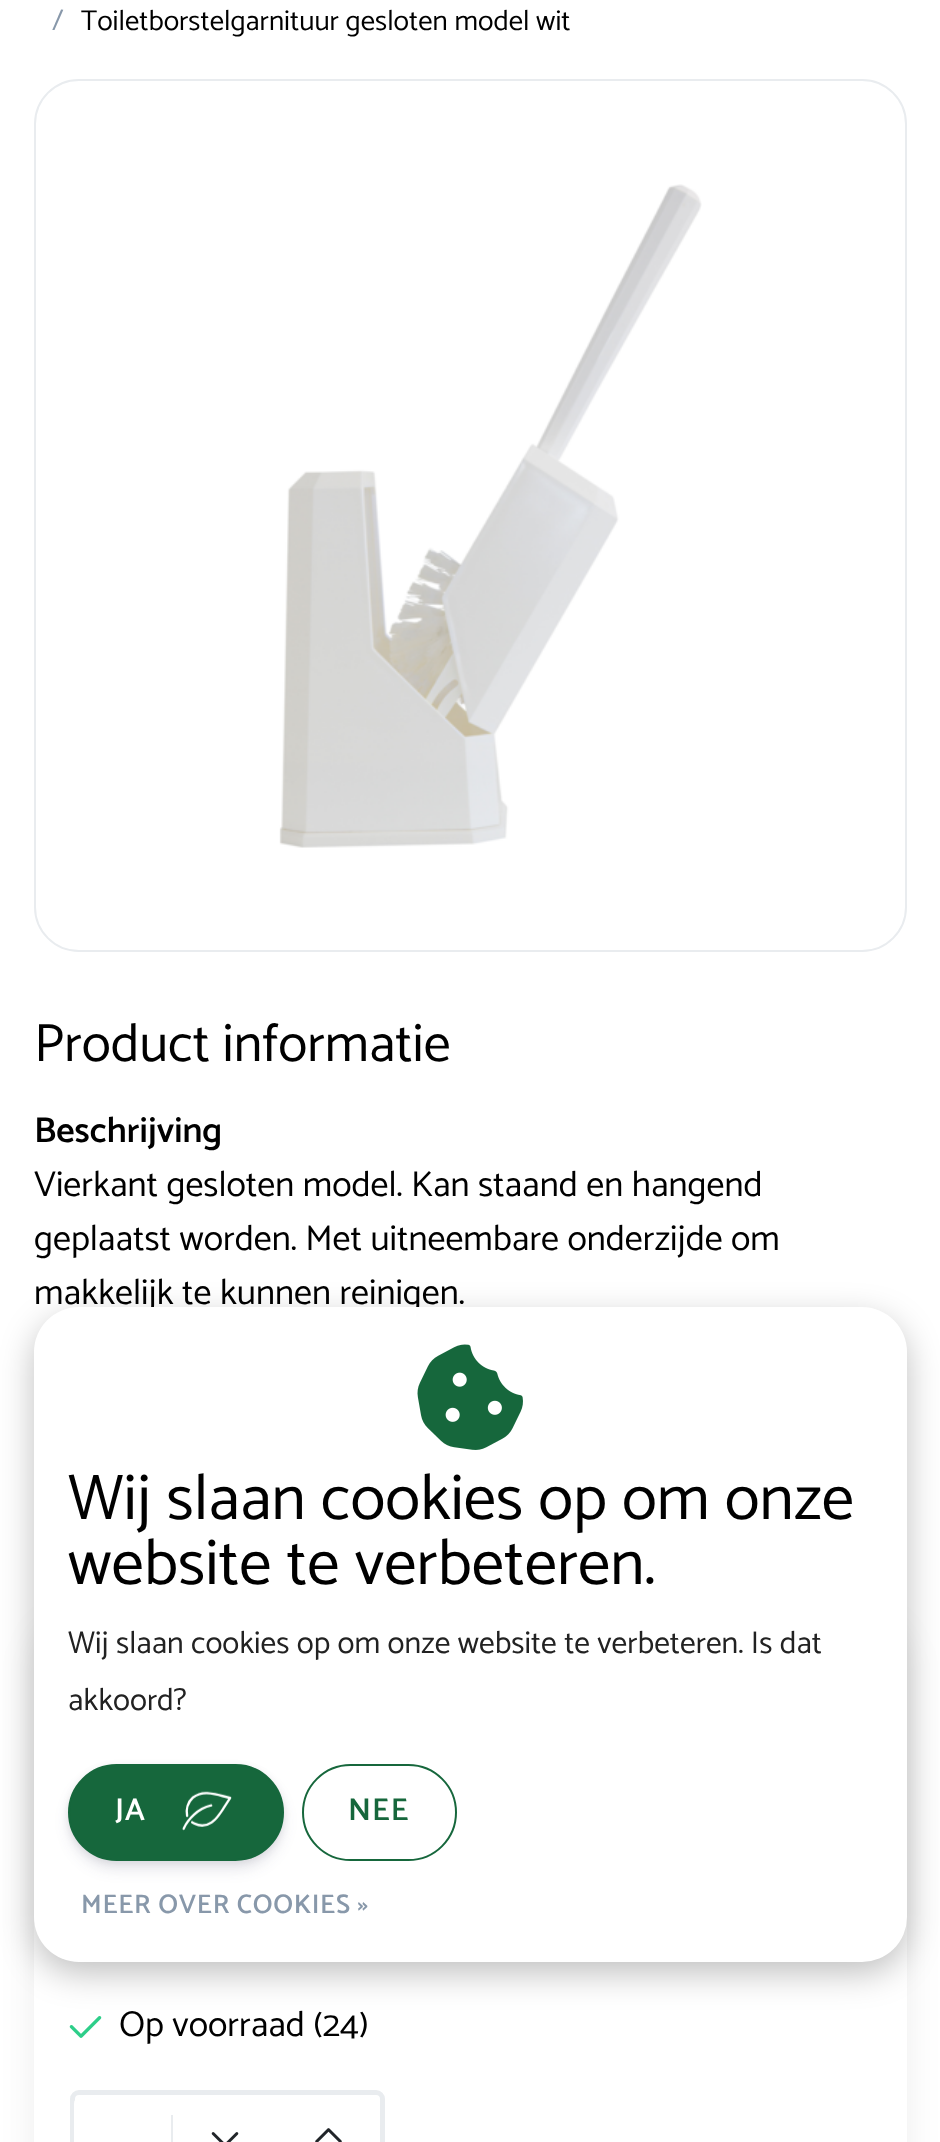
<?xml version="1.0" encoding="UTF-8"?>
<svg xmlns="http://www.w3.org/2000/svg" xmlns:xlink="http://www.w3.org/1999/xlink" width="940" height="2142">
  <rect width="100%" height="100%" fill="#ffffff" />
  <rect x="35" y="80" width="871" height="871" rx="44" fill="none" stroke="#e9ecef" stroke-width="2" />
  <image x="279" y="184" width="423" height="664" xlink:href="image1.png" />
  <rect x="34" y="1620" width="873" height="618" rx="45" fill="#000000" fill-opacity="0.07" filter="blur(17px)" />
  <rect x="34" y="1917" width="873" height="225" fill="#ffffff" />
  <image x="69" y="2016" width="33" height="22" xlink:href="image2.png" />
  <rect x="72.5" y="2092.5" width="310" height="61" rx="6.5" fill="none" stroke="#e9ecef" stroke-width="5" />
  <rect x="74" y="2095" width="97" height="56" rx="9" fill="#ffffff" />
  <rect x="171" y="2115" width="2" height="27" fill="#e9ecef" />
  <image x="211" y="2132" width="28" height="10" xlink:href="image3.png" />
  <image x="315" y="2128" width="27" height="14" xlink:href="image4.png" />
  <rect x="34" y="1319" width="873" height="654" rx="45" fill="#000000" fill-opacity="0.25" filter="blur(17px)" />
  <text x="52" y="30" style="font-family: Catamaran; font-size: 28.75px; fill: #8898aa">/</text>
  <text x="81" y="30" style="font-family: Catamaran; font-size: 28.75px; fill: #000000">Toiletborstelgarnituur gesloten model wit</text>
  <text x="34" y="1061" style="font-family: Catamaran; font-size: 54px; fill: #000000">Product informatie</text>
  <text x="34" y="1142" style="font-family: Catamaran; font-size: 36px; font-weight: 600; fill: #000000">Beschrijving</text>
  <text x="34" y="1196" style="font-family: Catamaran; font-size: 36px; fill: #000000">Vierkant gesloten model. Kan staand en hangend</text>
  <text x="34" y="1250" style="font-family: Catamaran; font-size: 36px; fill: #000000">geplaatst worden. Met uitneembare onderzijde om</text>
  <text x="34" y="1304" style="font-family: Catamaran; font-size: 36px; fill: #000000">makkelijk te kunnen reinigen.</text>
  <text x="119" y="2036" style="font-family: Catamaran; font-size: 36px; fill: #000000">Op voorraad (24)</text>
  <rect x="34" y="1307" width="873" height="655" rx="45" fill="#ffffff" />
  <image x="417" y="1344" width="106" height="106" xlink:href="image5.png" />
  <text x="68" y="1519" style="font-family: Catamaran; font-size: 64.75px; fill: #000000">Wij slaan cookies op om onze</text>
  <text x="68" y="1584" style="font-family: Catamaran; font-size: 64.75px; fill: #000000">website te verbeteren.</text>
  <text x="68" y="1653" style="font-family: Catamaran; font-size: 31.5px; fill: #222222">Wij slaan cookies op om onze website te verbeteren. Is dat</text>
  <text x="68" y="1710" style="font-family: Catamaran; font-size: 31.5px; fill: #222222">akkoord?</text>
  <rect x="68" y="1766" width="216" height="97" rx="48.5" fill="#000000" fill-opacity="0.08" filter="blur(3.5px)" />
  <rect x="68" y="1773" width="216" height="97" rx="48.5" fill="#32325d" fill-opacity="0.11" filter="blur(7px)" />
  <rect x="69" y="1765" width="214" height="95" rx="47.5" fill="#16673c" stroke="#16673c" stroke-width="2" />
  <text x="115" y="1820" style="font-family: Catamaran; font-size: 31.5px; font-weight: 600; letter-spacing: 1px; fill: #ffffff">JA</text>
  <image x="182" y="1791" width="50" height="40" xlink:href="image6.png" />
  <rect x="303" y="1765" width="153" height="95" rx="47.5" fill="none" stroke="#16673c" stroke-width="2" />
  <text x="348" y="1820" style="font-family: Catamaran; font-size: 31.5px; font-weight: 600; letter-spacing: 1px; fill: #16673c">NEE</text>
  <text x="81" y="1913" style="font-family: Catamaran; font-size: 27px; font-weight: 600; letter-spacing: 0.7px; fill: #8898aa">MEER OVER COOKIES »</text>
</svg>
